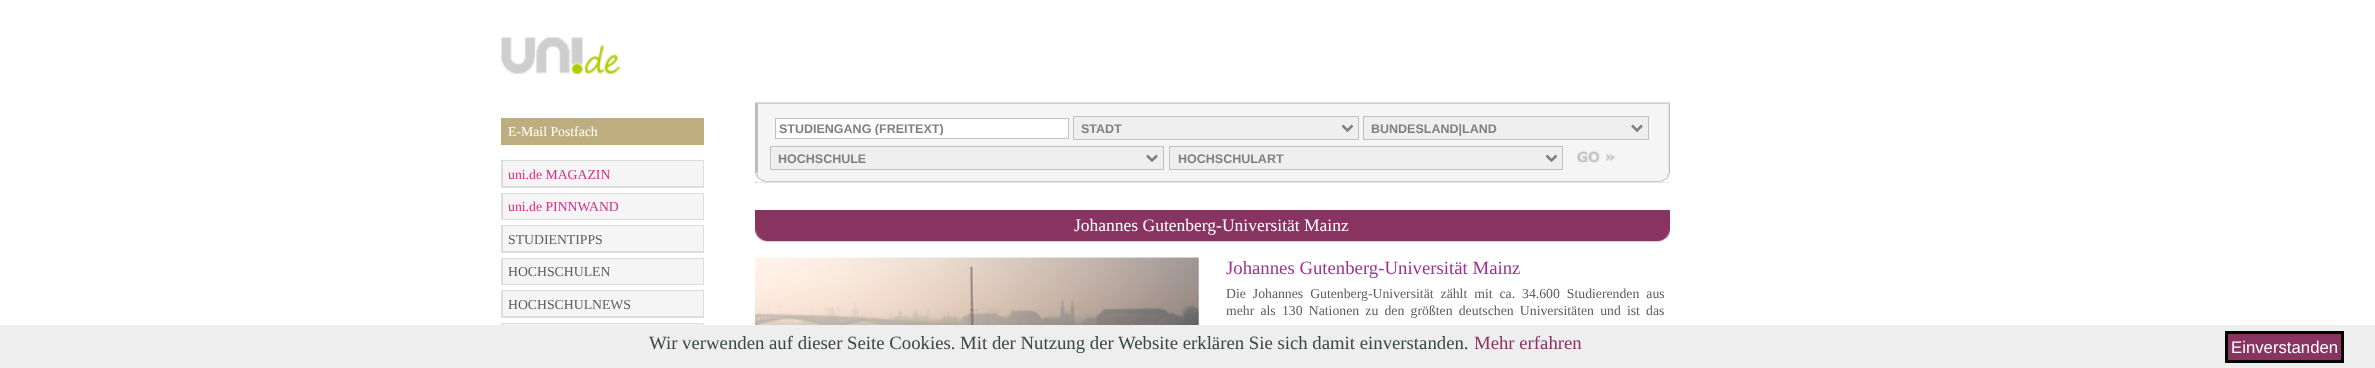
<?xml version="1.0" encoding="UTF-8"?>
<svg xmlns="http://www.w3.org/2000/svg" xmlns:xlink="http://www.w3.org/1999/xlink" width="2375" height="368">
  <defs>
    <clipPath id="clip1"><rect x="779" y="121" width="286" height="14" /></clipPath>
  </defs>
  <rect width="100%" height="100%" fill="#ffffff" />
  <image x="501" y="37" width="120" height="37" xlink:href="image1.png" />
  <rect x="501" y="118" width="203" height="27" fill="#bead7f" />
  <rect x="501" y="160" width="203" height="28" fill="#dddddd" />
  <rect x="503" y="161" width="200" height="25" fill="#f5f5f5" />
  <rect x="501" y="193" width="203" height="27" fill="#dddddd" />
  <rect x="503" y="194" width="200" height="25" fill="#f5f5f5" />
  <rect x="501" y="225" width="203" height="28" fill="#dddddd" />
  <rect x="503" y="226" width="200" height="25" fill="#f5f5f5" />
  <rect x="501" y="258" width="203" height="27" fill="#dddddd" />
  <rect x="503" y="259" width="200" height="25" fill="#f5f5f5" />
  <rect x="501" y="290" width="203" height="28" fill="#dddddd" />
  <rect x="503" y="291" width="200" height="25" fill="#f5f5f5" />
  <rect x="501" y="323" width="203" height="2" fill="#dddddd" />
  <rect x="503" y="324" width="200" height="1" fill="#f5f5f5" />
  <image x="755" y="102" width="915" height="2" xlink:href="image2.png" />
  <rect x="758" y="104" width="912" height="79" fill="#f5f5f5" />
  <rect x="755" y="103" width="3" height="80" fill="#bdbdbd" />
  <image x="1668" y="104" width="2" height="79" xlink:href="image3.png" />
  <image x="758" y="181" width="912" height="2" xlink:href="image4.png" />
  <image x="755" y="172" width="13" height="11" xlink:href="image5.png" />
  <image x="1659" y="173" width="11" height="10" xlink:href="image6.png" />
  <rect x="775.5" y="118.5" width="293" height="20" fill="#ffffff" stroke="#c0c0c0" />
  <rect x="1073.5" y="116.5" width="285" height="23" fill="#efefef" stroke="#c0c0c0" />
  <path d="M 1342.5 125.5 l 5 5 l 5 -5" fill="none" stroke="#808080" stroke-width="2.5" />
  <rect x="1363.5" y="116.5" width="285" height="23" fill="#efefef" stroke="#c0c0c0" />
  <path d="M 1632 125.5 l 5 5 l 5 -5" fill="none" stroke="#808080" stroke-width="2.5" />
  <rect x="770.5" y="146.5" width="393" height="23" fill="#efefef" stroke="#c0c0c0" />
  <path d="M 1147 155.5 l 5 5 l 5 -5" fill="none" stroke="#808080" stroke-width="2.5" />
  <rect x="1169.5" y="146.5" width="393" height="23" fill="#efefef" stroke="#c0c0c0" />
  <path d="M 1546.5 155.5 l 5 5 l 5 -5" fill="none" stroke="#808080" stroke-width="2.5" />
  <image x="1577" y="150" width="38" height="13" xlink:href="image7.png" />
  <image x="755" y="210" width="915" height="32" xlink:href="image8.png" />
  <image x="755" y="257" width="444" height="68" xlink:href="image9.png" />
  <rect y="325" width="2375" height="43" fill="#eeeeee" />
  <rect x="2226.5" y="332.5" width="116" height="29" fill="#893361" stroke="#000000" stroke-width="3" />
  <text x="508" y="136" style="font-family: Liberation Serif; font-size: 13.75px; fill: #ffffff">E-Mail Postfach</text>
  <text x="508" y="179" style="font-family: Liberation Serif; font-size: 13.75px; fill: #db2b89">uni.de MAGAZIN</text>
  <text x="508" y="211" style="font-family: Liberation Serif; font-size: 13.75px; fill: #db2b89">uni.de PINNWAND</text>
  <text x="508" y="244" style="font-family: Liberation Serif; font-size: 13.75px; fill: #5d5d5b">STUDIENTIPPS</text>
  <text x="508" y="276" style="font-family: Liberation Serif; font-size: 13.75px; fill: #5d5d5b">HOCHSCHULEN</text>
  <text x="508" y="309" style="font-family: Liberation Serif; font-size: 13.75px; fill: #5d5d5b">HOCHSCHULNEWS</text>
  <g clip-path="url(#clip1)">
    <text x="779" y="133" style="font-family: Liberation Sans; font-size: 12.5px; font-weight: bold; fill: #808080">STUDIENGANG (FREITEXT)</text>
  </g>
  <text x="1081" y="133" style="font-family: Liberation Sans; font-size: 12.5px; font-weight: bold; fill: #808080">STADT</text>
  <text x="1371" y="133" style="font-family: Liberation Sans; font-size: 12.5px; font-weight: bold; fill: #808080">BUNDESLAND|LAND</text>
  <text x="778" y="163" style="font-family: Liberation Sans; font-size: 12.5px; font-weight: bold; fill: #808080">HOCHSCHULE</text>
  <text x="1178" y="163" style="font-family: Liberation Sans; font-size: 12.5px; font-weight: bold; fill: #808080">HOCHSCHULART</text>
  <text x="1074" y="231" style="font-family: Liberation Serif; font-size: 17.5px; fill: #ffffff">Johannes Gutenberg-Universität Mainz</text>
  <text x="1226" y="274" style="font-family: Liberation Serif; font-size: 18.75px; fill: #9f3393">Johannes Gutenberg-Universität Mainz</text>
  <text x="1226" y="298" word-spacing="3.5" style="font-family: Liberation Serif; font-size: 13.75px; fill: #5d5d5b">Die Johannes Gutenberg-Universität zählt mit ca. 34.600 Studierenden aus</text>
  <text x="1226" y="315" word-spacing="2.75" style="font-family: Liberation Serif; font-size: 13.75px; fill: #5d5d5b">mehr als 130 Nationen zu den größten deutschen Universitäten und ist das</text>
  <text x="649" y="349" style="font-family: Liberation Serif; font-size: 18.75px; fill: #374845">Wir verwenden auf dieser Seite Cookies. Mit der Nutzung der Website erklären Sie sich damit einverstanden.</text>
  <text x="1474" y="349" style="font-family: Liberation Serif; font-size: 18.75px; fill: #893361">Mehr erfahren</text>
  <text x="2231" y="353" style="font-family: Liberation Sans; font-size: 16.75px; fill: #ffffff">Einverstanden</text>
</svg>
